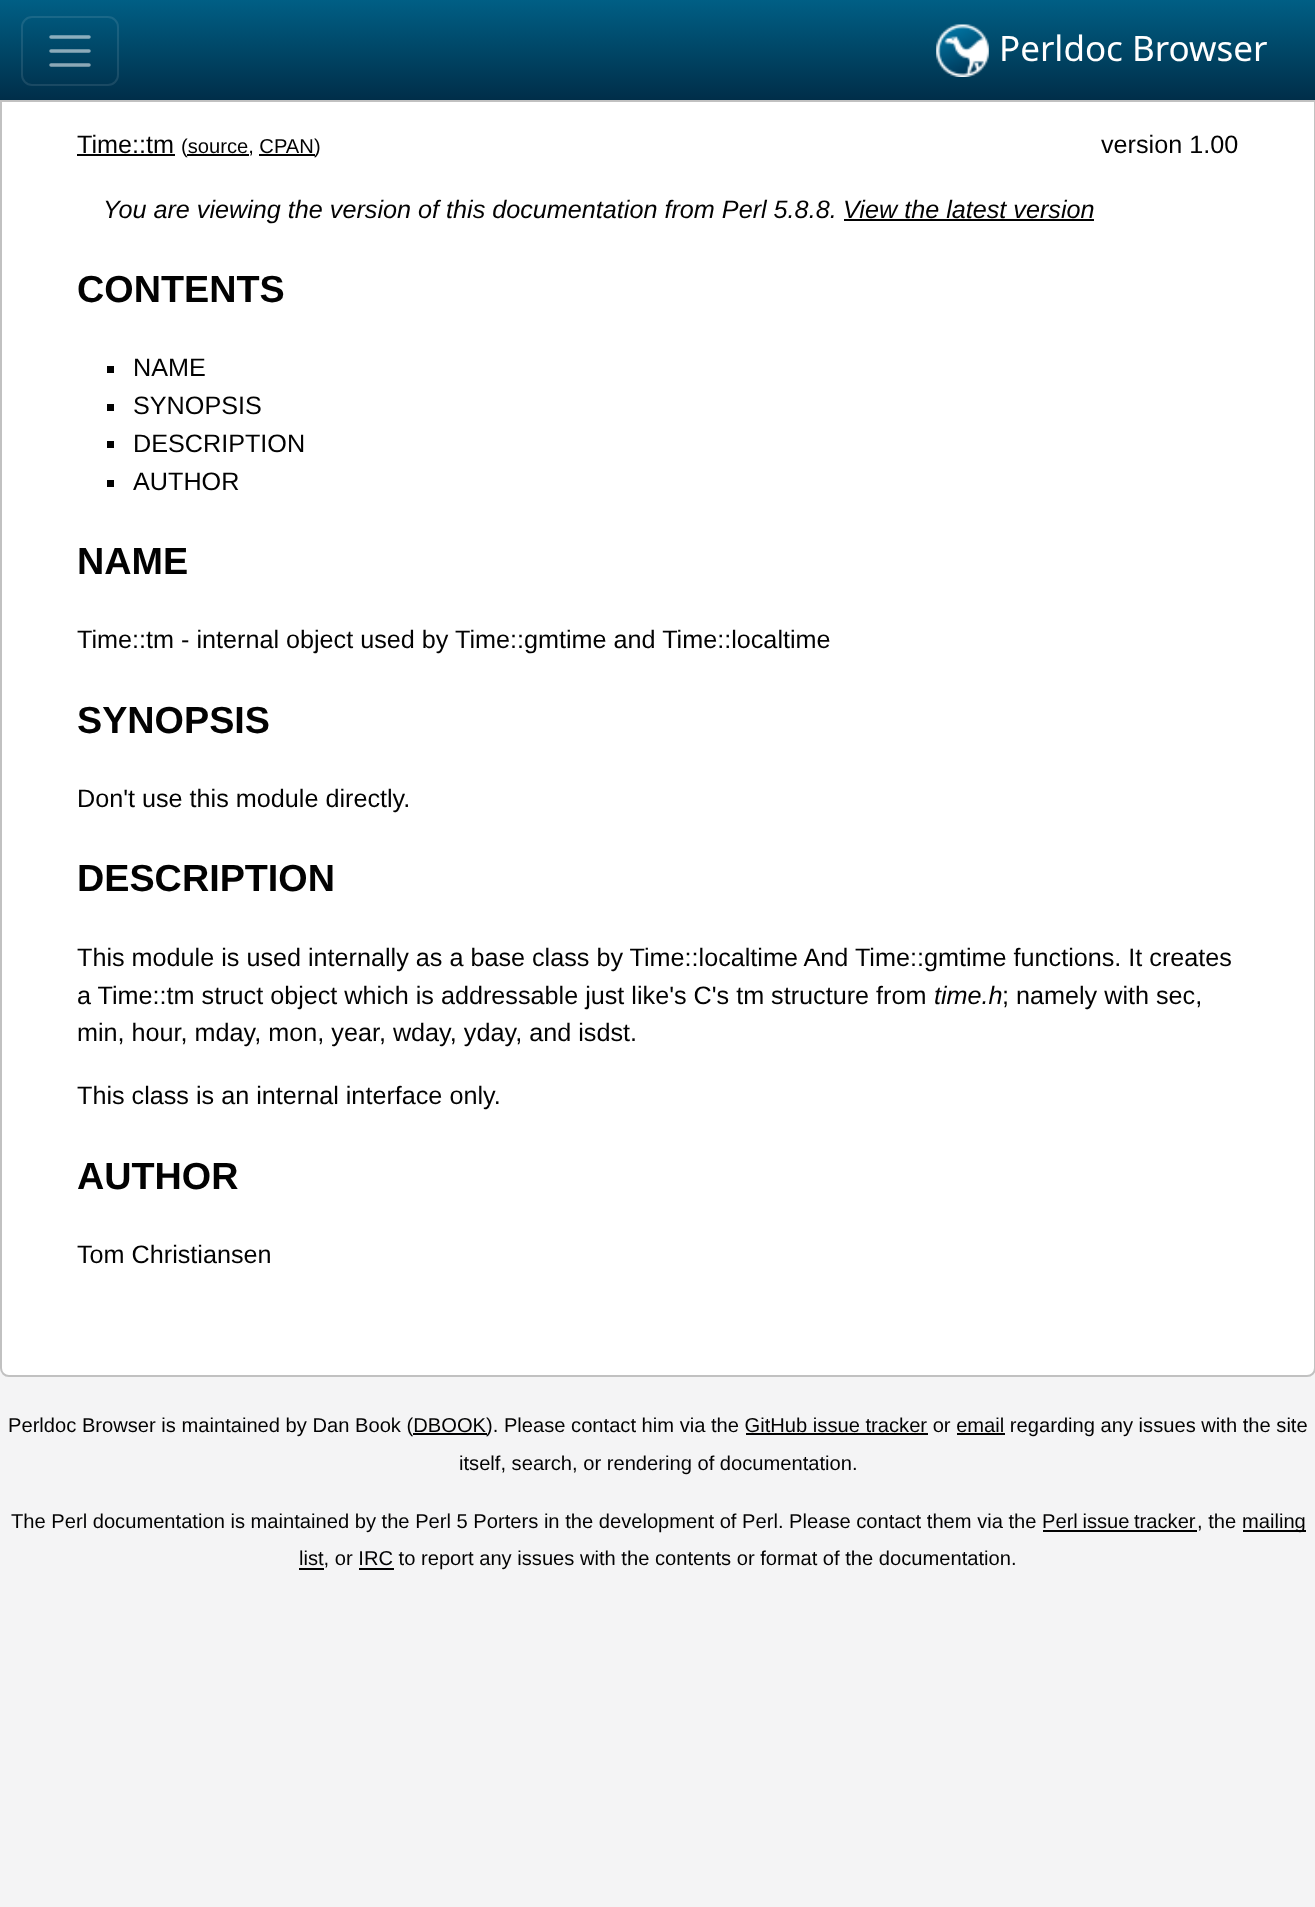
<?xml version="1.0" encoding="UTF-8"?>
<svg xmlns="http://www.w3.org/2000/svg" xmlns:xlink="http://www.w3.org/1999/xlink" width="1315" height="1907">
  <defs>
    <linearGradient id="g1" gradientUnits="userSpaceOnUse" x1="658" y1="0" x2="658" y2="100"><stop offset="0" stop-color="#005f85" /><stop offset="1" stop-color="#002e49" /></linearGradient>
  </defs>
  <rect width="100%" height="100%" fill="#f4f4f5" />
  <rect width="1315" height="100" fill="url(#g1)" />
  <rect x="22" y="17" width="96" height="68" rx="10" fill="none" stroke="#ffffff" stroke-opacity="0.1" stroke-width="2" />
  <path d="M 51 37 h 38 m -38 14 h 38 m -38 14 h 38" fill="none" stroke="#ffffff" stroke-opacity="0.55" stroke-width="3.5" stroke-linecap="round" />
  <image x="936" y="24" width="53" height="53" xlink:href="image1.png" />
  <path d="M 1 101 h 1314 v 1267 c 0 4.5 -3.5 8 -8 8 h -1298 c -4.5 0 -8 -3.5 -8 -8 z" fill="#ffffff" stroke="#c1c1c1" stroke-width="2" />
  <rect x="77" y="154" width="98" height="2" fill="#020202" />
  <rect x="187" y="154" width="62" height="2" fill="#020202" />
  <rect x="259" y="154" width="56" height="2" fill="#020202" />
  <rect x="844" y="219" width="250" height="2" fill="#020202" />
  <rect x="107" y="366" width="7" height="7" fill="#020202" />
  <rect x="107" y="404" width="7" height="7" fill="#020202" />
  <rect x="107" y="441" width="7" height="7" fill="#020202" />
  <rect x="107" y="480" width="7" height="7" fill="#020202" />
  <rect x="413" y="1433" width="74" height="2" fill="#020202" />
  <rect x="746" y="1433" width="182" height="2" fill="#020202" />
  <rect x="957" y="1433" width="48" height="2" fill="#020202" />
  <rect x="1043" y="1530" width="154" height="2" fill="#020202" />
  <rect x="1243" y="1530" width="63" height="2" fill="#020202" />
  <rect x="299" y="1568" width="25" height="2" fill="#020202" />
  <rect x="359" y="1568" width="35" height="2" fill="#020202" />
  <text x="999" y="61" style="font-family: Noto Sans; font-size: 35px; fill: #ffffff">Perldoc Browser</text>
  <text x="77" y="153" style="font-family: Liberation Sans; font-size: 25.2px; fill: #020202">Time::tm</text>
  <text x="181" y="153" style="font-family: Liberation Sans; font-size: 20.15px; fill: #020202">(source, CPAN</text>
  <text x="314" y="153" style="font-family: Liberation Sans; font-size: 20.15px; fill: #020202">)</text>
  <text x="1101" y="153" style="font-family: Liberation Sans; font-size: 25.2px; fill: #020202">version 1.00</text>
  <text x="103" y="218" style="font-family: Liberation Sans; font-size: 25.2px; font-style: italic; fill: #020202">You are viewing the version of this documentation from Perl 5.8.8.</text>
  <text x="843" y="218" style="font-family: Liberation Sans; font-size: 25.2px; font-style: italic; fill: #020202">View the latest version</text>
  <text x="77" y="302" style="font-family: Liberation Sans; font-size: 37.75px; font-weight: bold; fill: #020202">CONTENTS</text>
  <text x="133" y="376" style="font-family: Liberation Sans; font-size: 25.2px; fill: #020202">NAME</text>
  <text x="133" y="414" style="font-family: Liberation Sans; font-size: 25.2px; fill: #020202">SYNOPSIS</text>
  <text x="133" y="452" style="font-family: Liberation Sans; font-size: 25.2px; fill: #020202">DESCRIPTION</text>
  <text x="133" y="490" style="font-family: Liberation Sans; font-size: 25.2px; fill: #020202">AUTHOR</text>
  <text x="77" y="574" style="font-family: Liberation Sans; font-size: 37.75px; font-weight: bold; fill: #020202">NAME</text>
  <text x="77" y="648" style="font-family: Liberation Sans; font-size: 25.2px; fill: #020202">Time::tm - internal object used by Time::gmtime and Time::localtime</text>
  <text x="77" y="733" style="font-family: Liberation Sans; font-size: 37.75px; font-weight: bold; fill: #020202">SYNOPSIS</text>
  <text x="77" y="807" style="font-family: Liberation Sans; font-size: 25.2px; fill: #020202">Don't use this module directly.</text>
  <text x="77" y="891" style="font-family: Liberation Sans; font-size: 37.75px; font-weight: bold; fill: #020202">DESCRIPTION</text>
  <text x="77" y="966" style="font-family: Liberation Sans; font-size: 25.2px; fill: #020202">This module is used internally as a base class by Time::localtime And Time::gmtime functions. It creates</text>
  <text x="77" y="1004" style="font-family: Liberation Sans; font-size: 25.2px; fill: #020202">a Time::tm struct object which is addressable just like's C's tm structure from</text>
  <text x="934" y="1004" style="font-family: Liberation Sans; font-size: 25.2px; font-style: italic; fill: #020202">time.h</text>
  <text x="1002" y="1004" style="font-family: Liberation Sans; font-size: 25.2px; fill: #020202">; namely with sec,</text>
  <text x="77" y="1041" style="font-family: Liberation Sans; font-size: 25.2px; fill: #020202">min, hour, mday, mon, year, wday, yday, and isdst.</text>
  <text x="77" y="1104" style="font-family: Liberation Sans; font-size: 25.2px; fill: #020202">This class is an internal interface only.</text>
  <text x="77" y="1189" style="font-family: Liberation Sans; font-size: 37.75px; font-weight: bold; fill: #020202">AUTHOR</text>
  <text x="77" y="1263" style="font-family: Liberation Sans; font-size: 25.2px; fill: #020202">Tom Christiansen</text>
  <text x="8" y="1432" style="font-family: Liberation Sans; font-size: 20.15px; fill: #020202">Perldoc Browser is maintained by Dan Book (DBOOK</text>
  <text x="486" y="1432" style="font-family: Liberation Sans; font-size: 20.15px; fill: #020202">). Please contact him via the GitHub issue tracker or email regarding any issues with the site</text>
  <text x="459" y="1470" style="font-family: Liberation Sans; font-size: 20.15px; fill: #020202">itself, search, or rendering of documentation.</text>
  <text x="11" y="1528" style="font-family: Liberation Sans; font-size: 20.15px; fill: #020202">The Perl documentation is maintained by the Perl 5 Porters in the development of Perl. Please contact them via the</text>
  <text x="1042" y="1528" word-spacing="-1" style="font-family: Liberation Sans; font-size: 20.15px; fill: #020202">Perl issue tracker</text>
  <text x="1197" y="1528" style="font-family: Liberation Sans; font-size: 20.15px; fill: #020202">, the</text>
  <text x="1242" y="1528" style="font-family: Liberation Sans; font-size: 20.15px; fill: #020202">mailing</text>
  <text x="299" y="1565" style="font-family: Liberation Sans; font-size: 20.15px; fill: #020202">list, or IRC to report any issues with the contents or format of the documentation.</text>
</svg>
